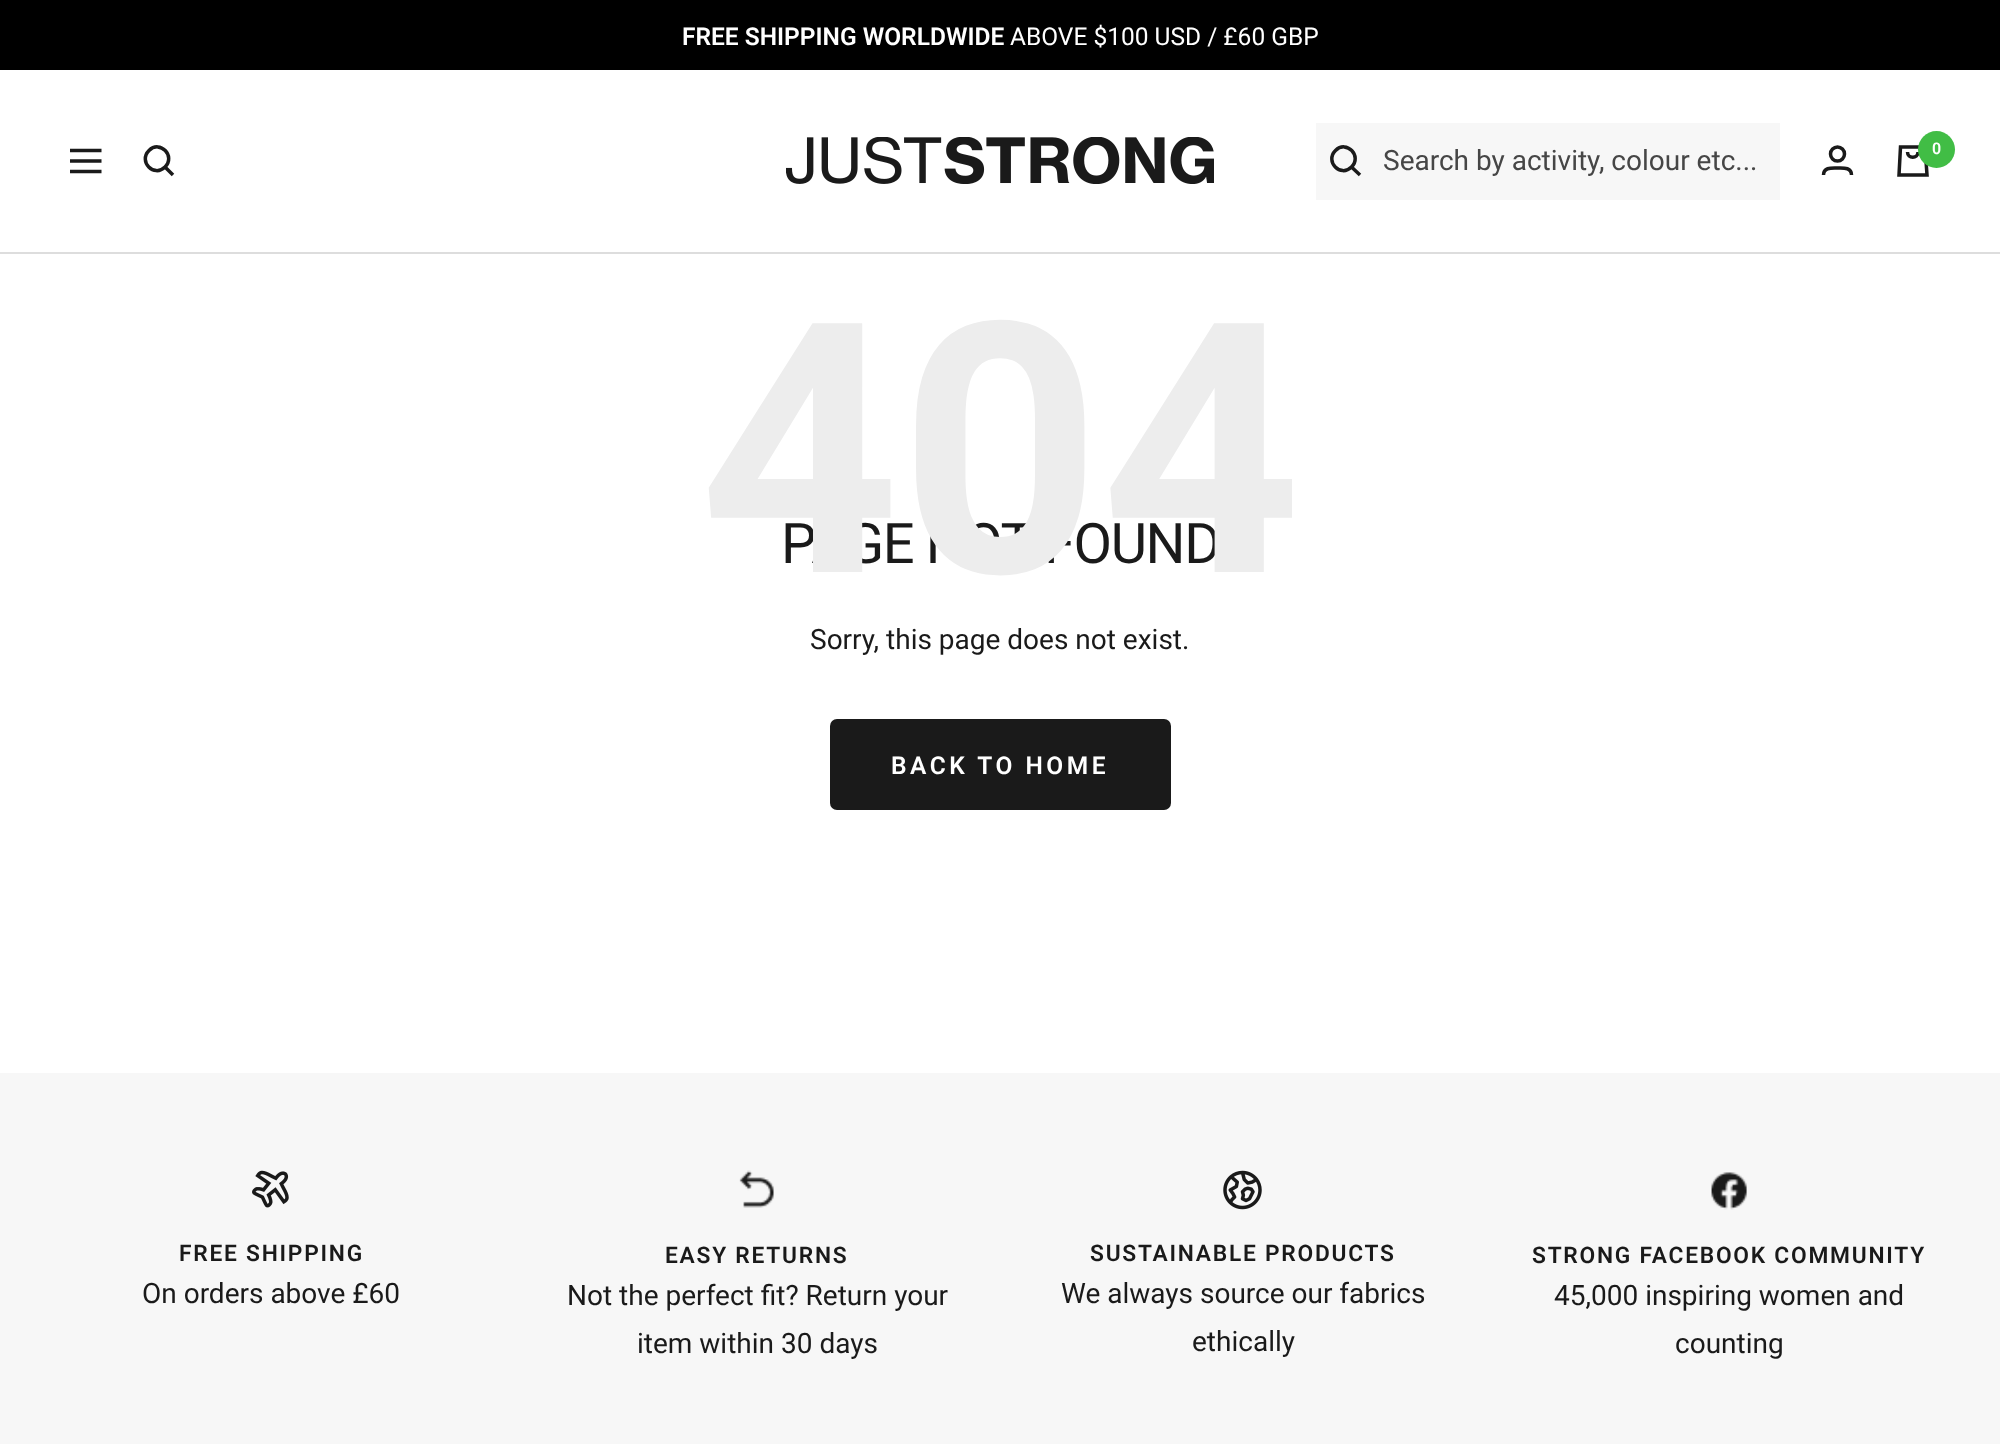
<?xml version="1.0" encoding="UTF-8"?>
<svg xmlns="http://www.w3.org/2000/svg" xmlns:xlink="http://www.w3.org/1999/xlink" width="2000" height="1444">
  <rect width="100%" height="100%" fill="#ffffff" />
  <rect width="2000" height="70" fill="#000000" />
  <rect y="252" width="2000" height="2" fill="#dddddd" />
  <path d="M 70 150.5 h 31.5 m -31.5 21 h 31.5 z m 0 -10.5 h 31.5 z" fill="none" stroke="#1a1a1a" stroke-width="3.5" />
  <path d="M 165 167 c 11 -11 -5 -27.5 -16 -16.5 c -11 11 5 27.5 16 16.5 z m 0 0 l 8 8" fill="none" stroke="#1a1a1a" stroke-width="3.5" />
  <image x="786" y="137" width="428" height="47" xlink:href="image1.png" />
  <rect x="1316" y="123" width="464" height="77" fill="#f7f7f7" />
  <path d="M 1351.5 167 c 11 -11 -5 -27.5 -16 -16.5 c -11 11 5 27.5 16 16.5 z m 0 0 l 8.5 8" fill="none" stroke="#1a1a1a" stroke-width="3.5" />
  <circle cx="1837.5" cy="154" r="7" fill="none" stroke="#1a1a1a" stroke-width="3.5" />
  <path d="M 1823.5 175 c 0 -8 8.5 -7 14 -7 c 5.5 0 14 -1 14 7" fill="none" stroke="#1a1a1a" stroke-width="3.5" />
  <path d="M 1900.5 147 h 24.5 l 2 28 h -28 z m 7 5 c 0 7 10.5 7 10.5 0" fill="none" stroke="#1a1a1a" stroke-width="3.5" />
  <circle cx="1936.5" cy="149.5" r="18.5" fill="#41bd45" />
  <rect x="830" y="719" width="341" height="91" rx="7" fill="#1a1a1a" />
  <rect y="1073" width="2000" height="371" fill="#f7f7f7" />
  <image x="252" y="1170" width="37" height="38" xlink:href="image2.png" />
  <image x="739" y="1170" width="35" height="38" xlink:href="image3.png" />
  <image x="1223" y="1170" width="39" height="40" xlink:href="image4.png" />
  <image x="1711" y="1172" width="36" height="38" xlink:href="image5.png" />
  <text x="682" y="45" style="font-family: Roboto; font-size: 24.5px; font-weight: 600; fill: #ffffff">FREE SHIPPING WORLDWIDE</text>
  <text x="1010" y="45" style="font-family: Roboto; font-size: 24.5px; fill: #ffffff">ABOVE $100 USD / £60 GBP</text>
  <text x="1383" y="170" style="font-family: Roboto; font-size: 28px; fill: #464646">Search by activity, colour etc...</text>
  <text x="1932" y="154" style="font-family: Roboto; font-size: 16px; font-weight: 600; fill: #ffffff">0</text>
  <text x="781" y="563" style="font-family: Roboto; font-size: 56px; letter-spacing: -1.4px; fill: #1a1a1a">PAGE NOT FOUND</text>
  <text x="699" y="572" style="font-family: Roboto; font-size: 350px; font-weight: bold; fill: #ededed">404</text>
  <text x="810" y="649" style="font-family: Roboto; font-size: 28px; fill: #1a1a1a">Sorry, this page does not exist.</text>
  <text x="891" y="774" style="font-family: Roboto; font-size: 24.5px; font-weight: 600; letter-spacing: 3.5px; fill: #ffffff">BACK TO HOME</text>
  <text x="179" y="1261" style="font-family: Roboto; font-size: 22.75px; font-weight: 600; letter-spacing: 1.75px; fill: #1a1a1a">FREE SHIPPING</text>
  <text x="142" y="1303" style="font-family: Roboto; font-size: 28px; fill: #1a1a1a">On orders above £60</text>
  <text x="665" y="1263" style="font-family: Roboto; font-size: 22.75px; font-weight: 600; letter-spacing: 1.75px; fill: #1a1a1a">EASY RETURNS</text>
  <text x="567" y="1305" style="font-family: Roboto; font-size: 28px; fill: #1a1a1a">Not the perfect fit? Return your</text>
  <text x="637" y="1353" style="font-family: Roboto; font-size: 28px; fill: #1a1a1a">item within 30 days</text>
  <text x="1090" y="1261" style="font-family: Roboto; font-size: 22.75px; font-weight: 600; letter-spacing: 1.75px; fill: #1a1a1a">SUSTAINABLE PRODUCTS</text>
  <text x="1061" y="1303" style="font-family: Roboto; font-size: 28px; fill: #1a1a1a">We always source our fabrics</text>
  <text x="1192" y="1351" style="font-family: Roboto; font-size: 28px; fill: #1a1a1a">ethically</text>
  <text x="1532" y="1263" style="font-family: Roboto; font-size: 22.75px; font-weight: 600; letter-spacing: 1.75px; fill: #1a1a1a">STRONG FACEBOOK COMMUNITY</text>
  <text x="1554" y="1305" style="font-family: Roboto; font-size: 28px; fill: #1a1a1a">45,000 inspiring women and</text>
  <text x="1675" y="1353" style="font-family: Roboto; font-size: 28px; fill: #1a1a1a">counting</text>
</svg>
